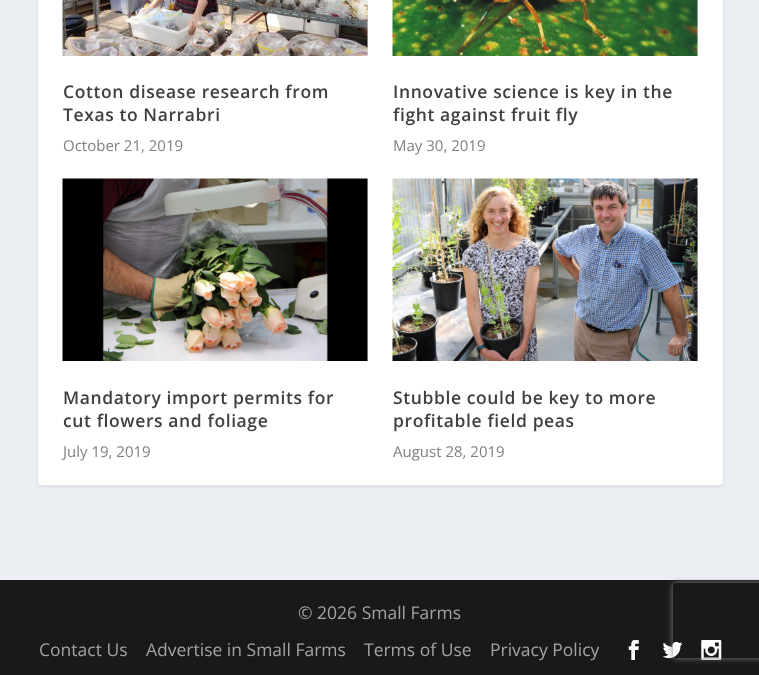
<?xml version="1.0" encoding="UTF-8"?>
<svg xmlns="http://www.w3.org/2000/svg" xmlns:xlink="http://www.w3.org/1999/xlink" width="759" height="675">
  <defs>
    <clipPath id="clip1"><path d="M 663 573 h 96 v 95 h -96 z m 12.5 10 h 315 c 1.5 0 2.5 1 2.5 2.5 v 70 c 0 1.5 -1 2.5 -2.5 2.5 h -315 c -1.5 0 -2.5 -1 -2.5 -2.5 v -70 c 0 -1.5 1 -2.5 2.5 -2.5 z" clip-rule="evenodd" /></clipPath>
  </defs>
  <rect width="100%" height="100%" fill="#ecf0f5" />
  <rect x="38" y="-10" width="685" height="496" rx="4" fill="#000000" fill-opacity="0.1" filter="blur(2px)" />
  <rect x="38" y="-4" width="685" height="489" rx="4" fill="#ffffff" />
  <rect x="367" width="1" height="56" fill="#e6e6e6" />
  <image x="62" y="0" width="306" height="56" xlink:href="image1.png" />
  <rect x="697" width="1" height="56" fill="#e6e6e6" />
  <image x="392" y="0" width="306" height="56" xlink:href="image2.png" />
  <rect x="367" y="179" width="1" height="182" fill="#e6e6e6" />
  <image x="62" y="178" width="306" height="183" xlink:href="image3.png" />
  <rect x="697" y="179" width="1" height="182" fill="#e6e6e6" />
  <image x="392" y="178" width="306" height="183" xlink:href="image4.png" />
  <rect y="580" width="759" height="95" fill="#191919" />
  <image x="628" y="640" width="11" height="20" xlink:href="image5.png" />
  <image x="662" y="641" width="21" height="18" xlink:href="image6.png" />
  <image x="701" y="640" width="21" height="20" xlink:href="image7.png" />
  <g clip-path="url(#clip1)">
    <rect x="673" y="583" width="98" height="75" rx="2.5" fill="#808080" filter="blur(3px)" />
  </g>
  <text x="63" y="98" style="font-family: Open Sans; font-size: 17.5px; font-weight: 600; letter-spacing: 0.6px; fill: #404040">Cotton disease research from</text>
  <text x="63" y="121" style="font-family: Open Sans; font-size: 17.5px; font-weight: 600; letter-spacing: 0.6px; fill: #404040">Texas to Narrabri</text>
  <text x="63" y="151" style="font-family: Open Sans; font-size: 15px; fill: #808080">October 21, 2019</text>
  <text x="393" y="98" style="font-family: Open Sans; font-size: 17.5px; font-weight: 600; letter-spacing: 0.6px; fill: #404040">Innovative science is key in the</text>
  <text x="393" y="121" style="font-family: Open Sans; font-size: 17.5px; font-weight: 600; letter-spacing: 0.6px; fill: #404040">fight against fruit fly</text>
  <text x="393" y="151" style="font-family: Open Sans; font-size: 15px; fill: #808080">May 30, 2019</text>
  <text x="63" y="404" style="font-family: Open Sans; font-size: 17.5px; font-weight: 600; letter-spacing: 0.6px; fill: #404040">Mandatory import permits for</text>
  <text x="63" y="427" style="font-family: Open Sans; font-size: 17.5px; font-weight: 600; letter-spacing: 0.6px; fill: #404040">cut flowers and foliage</text>
  <text x="63" y="457" style="font-family: Open Sans; font-size: 15px; fill: #808080">July 19, 2019</text>
  <text x="393" y="404" style="font-family: Open Sans; font-size: 17.5px; font-weight: 600; letter-spacing: 0.6px; fill: #404040">Stubble could be key to more</text>
  <text x="393" y="427" style="font-family: Open Sans; font-size: 17.5px; font-weight: 600; letter-spacing: 0.6px; fill: #404040">profitable field peas</text>
  <text x="393" y="457" style="font-family: Open Sans; font-size: 15px; fill: #808080">August 28, 2019</text>
  <text x="298" y="619" style="font-family: Open Sans; font-size: 17.5px; fill: #a3a3a3">© 2026 Small Farms</text>
  <text x="39" y="656" style="font-family: Open Sans; font-size: 17.5px; fill: #a3a3a3">Contact Us</text>
  <text x="146" y="656" style="font-family: Open Sans; font-size: 17.5px; fill: #a3a3a3">Advertise in Small Farms</text>
  <text x="364" y="656" style="font-family: Open Sans; font-size: 17.5px; fill: #a3a3a3">Terms of Use</text>
  <text x="490" y="656" style="font-family: Open Sans; font-size: 17.5px; fill: #a3a3a3">Privacy Policy</text>
</svg>
